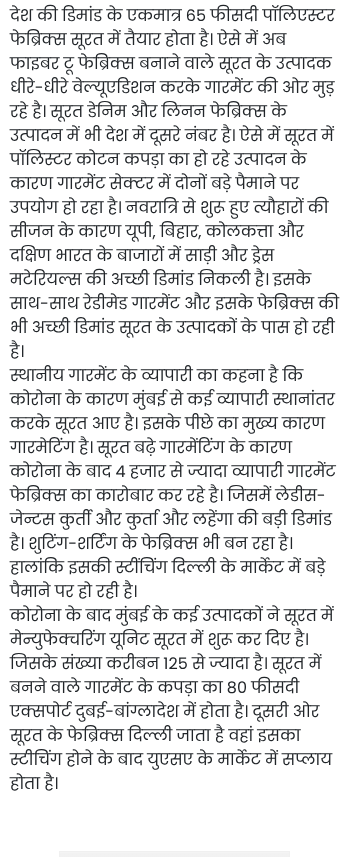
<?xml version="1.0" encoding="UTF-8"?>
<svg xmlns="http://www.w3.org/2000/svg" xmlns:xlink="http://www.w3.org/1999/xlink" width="349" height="857">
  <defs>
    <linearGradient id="g1" gradientUnits="userSpaceOnUse" x1="175" y1="852" x2="175" y2="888"><stop offset="0" stop-color="#f2f2f2" /><stop offset="1" stop-color="#f0f0f0" /></linearGradient>
  </defs>
  <rect width="100%" height="100%" fill="#ffffff" />
  <rect x="59" y="853" width="231" height="4" fill="url(#g1)" />
  <rect x="60" y="852" width="229" height="1" fill="#f4f4f4" />
  <rect x="59.5" y="851.5" width="230" height="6" fill="none" stroke="#f0f0f0" />
  <text x="10" y="21" style="font-family: Poppins; font-size: 16px; fill: #212529">देश की डिमांड के एकमात्र 65 फीसदी पॉलिएस्टर</text>
  <text x="10" y="45" style="font-family: Poppins; font-size: 16px; fill: #212529">फेब्रिक्स सूरत में तैयार होता है। ऐसे में अब</text>
  <text x="10" y="69" style="font-family: Poppins; font-size: 16px; fill: #212529">फाइबर टू फेब्रिक्स बनाने वाले सूरत के उत्पादक</text>
  <text x="10" y="93" style="font-family: Poppins; font-size: 16px; fill: #212529">धीरे-धीरे वेल्यूएडिशन करके गारमेंट की ओर मुड़</text>
  <text x="10" y="117" style="font-family: Poppins; font-size: 16px; fill: #212529">रहे है। सूरत डेनिम और लिनन फेब्रिक्स के</text>
  <text x="10" y="141" style="font-family: Poppins; font-size: 16px; fill: #212529">उत्पादन में भी देश में दूसरे नंबर है। ऐसे में सूरत में</text>
  <text x="10" y="165" style="font-family: Poppins; font-size: 16px; fill: #212529">पॉलिस्टर कोटन कपड़ा का हो रहे उत्पादन के</text>
  <text x="10" y="189" style="font-family: Poppins; font-size: 16px; fill: #212529">कारण गारमेंट सेक्टर में दोनों बड़े पैमाने पर</text>
  <text x="10" y="213" style="font-family: Poppins; font-size: 16px; fill: #212529">उपयोग हो रहा है। नवरात्रि से शुरू हुए त्यौहारों की</text>
  <text x="10" y="237" style="font-family: Poppins; font-size: 16px; fill: #212529">सीजन के कारण यूपी, बिहार, कोलकत्ता और</text>
  <text x="10" y="261" style="font-family: Poppins; font-size: 16px; fill: #212529">दक्षिण भारत के बाजारों में साड़ी और ड्रेस</text>
  <text x="10" y="285" style="font-family: Poppins; font-size: 16px; fill: #212529">मटेरियल्स की अच्छी डिमांड निकली है। इसके</text>
  <text x="10" y="309" style="font-family: Poppins; font-size: 16px; fill: #212529">साथ-साथ रेडीमेड गारमेंट और इसके फेब्रिक्स की</text>
  <text x="10" y="333" style="font-family: Poppins; font-size: 16px; fill: #212529">भी अच्छी डिमांड सूरत के उत्पादकों के पास हो रही</text>
  <text x="10" y="357" style="font-family: Poppins; font-size: 16px; fill: #212529">है।</text>
  <text x="10" y="381" style="font-family: Poppins; font-size: 16px; fill: #212529">स्थानीय गारमेंट के व्यापारी का कहना है कि</text>
  <text x="10" y="405" style="font-family: Poppins; font-size: 16px; fill: #212529">कोरोना के कारण मुंबई से कई व्यापारी स्थानांतर</text>
  <text x="10" y="429" style="font-family: Poppins; font-size: 16px; fill: #212529">करके सूरत आए है। इसके पीछे का मुख्य कारण</text>
  <text x="10" y="453" style="font-family: Poppins; font-size: 16px; fill: #212529">गारमेटिंग है। सूरत बढ़े गारमेंटिंग के कारण</text>
  <text x="10" y="477" style="font-family: Poppins; font-size: 16px; fill: #212529">कोरोना के बाद 4 हजार से ज्यादा व्यापारी गारमेंट</text>
  <text x="10" y="501" style="font-family: Poppins; font-size: 16px; fill: #212529">फेब्रिक्स का कारोबार कर रहे है। जिसमें लेडीस-</text>
  <text x="10" y="525" style="font-family: Poppins; font-size: 16px; fill: #212529">जेन्टस कुर्ती और कुर्ता और लहेंगा की बड़ी डिमांड</text>
  <text x="10" y="549" style="font-family: Poppins; font-size: 16px; fill: #212529">है। शुटिंग-शर्टिंग के फेब्रिक्स भी बन रहा है।</text>
  <text x="10" y="573" style="font-family: Poppins; font-size: 16px; fill: #212529">हालांकि इसकी स्टींचिंग दिल्ली के मार्केट में बड़े</text>
  <text x="10" y="597" style="font-family: Poppins; font-size: 16px; fill: #212529">पैमाने पर हो रही है।</text>
  <text x="10" y="621" style="font-family: Poppins; font-size: 16px; fill: #212529">कोरोना के बाद मुंबई के कई उत्पादकों ने सूरत में</text>
  <text x="10" y="645" style="font-family: Poppins; font-size: 16px; fill: #212529">मेन्युफेक्चरिंग यूनिट सूरत में शुरू कर दिए है।</text>
  <text x="10" y="669" style="font-family: Poppins; font-size: 16px; fill: #212529">जिसके संख्या करीबन 125 से ज्यादा है। सूरत में</text>
  <text x="10" y="693" style="font-family: Poppins; font-size: 16px; fill: #212529">बनने वाले गारमेंट के कपड़ा का 80 फीसदी</text>
  <text x="10" y="717" style="font-family: Poppins; font-size: 16px; fill: #212529">एक्सपोर्ट दुबई-बांग्लादेश में होता है। दूसरी ओर</text>
  <text x="10" y="741" style="font-family: Poppins; font-size: 16px; fill: #212529">सूरत के फेब्रिक्स दिल्ली जाता है वहां इसका</text>
  <text x="10" y="765" style="font-family: Poppins; font-size: 16px; fill: #212529">स्टीचिंग होने के बाद युएसए के मार्केट में सप्लाय</text>
  <text x="10" y="789" style="font-family: Poppins; font-size: 16px; fill: #212529">होता है।</text>
</svg>
